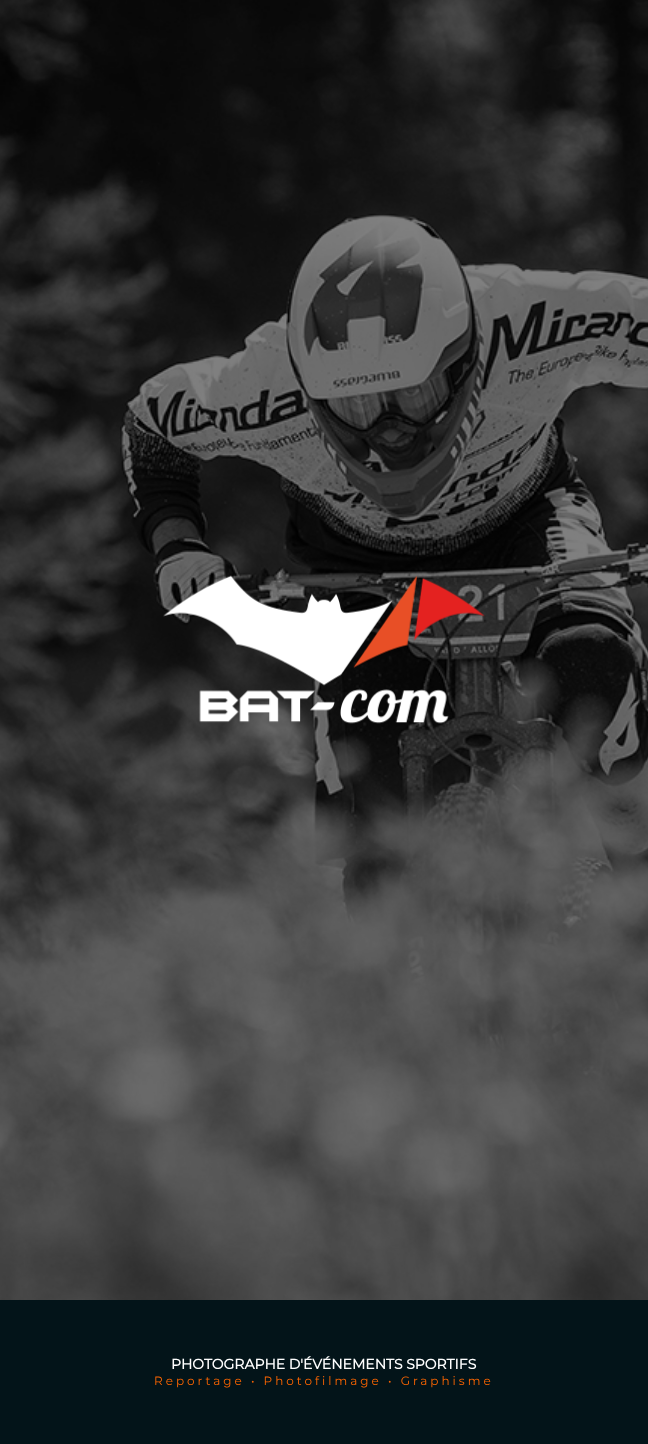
<?xml version="1.0" encoding="UTF-8"?>
<svg xmlns="http://www.w3.org/2000/svg" xmlns:xlink="http://www.w3.org/1999/xlink" width="648" height="1444">
  <rect width="100%" height="100%" fill="#ffffff" />
  <image x="0" y="0" width="648" height="1300" xlink:href="image1.png" />
  <image x="163" y="575" width="322" height="149" xlink:href="image2.png" />
  <rect y="1300" width="648" height="144" fill="#031419" />
  <text x="171" y="1369" style="font-family: Montserrat; font-size: 14px; font-weight: bold; fill: #ffffff">PHOTOGRAPHE D'ÉVÉNEMENTS SPORTIFS</text>
  <text x="154" y="1385" style="font-family: Montserrat; font-size: 12px; font-weight: 100; letter-spacing: 3px; fill: #ff6600">Reportage • Photofilmage • Graphisme</text>
</svg>
